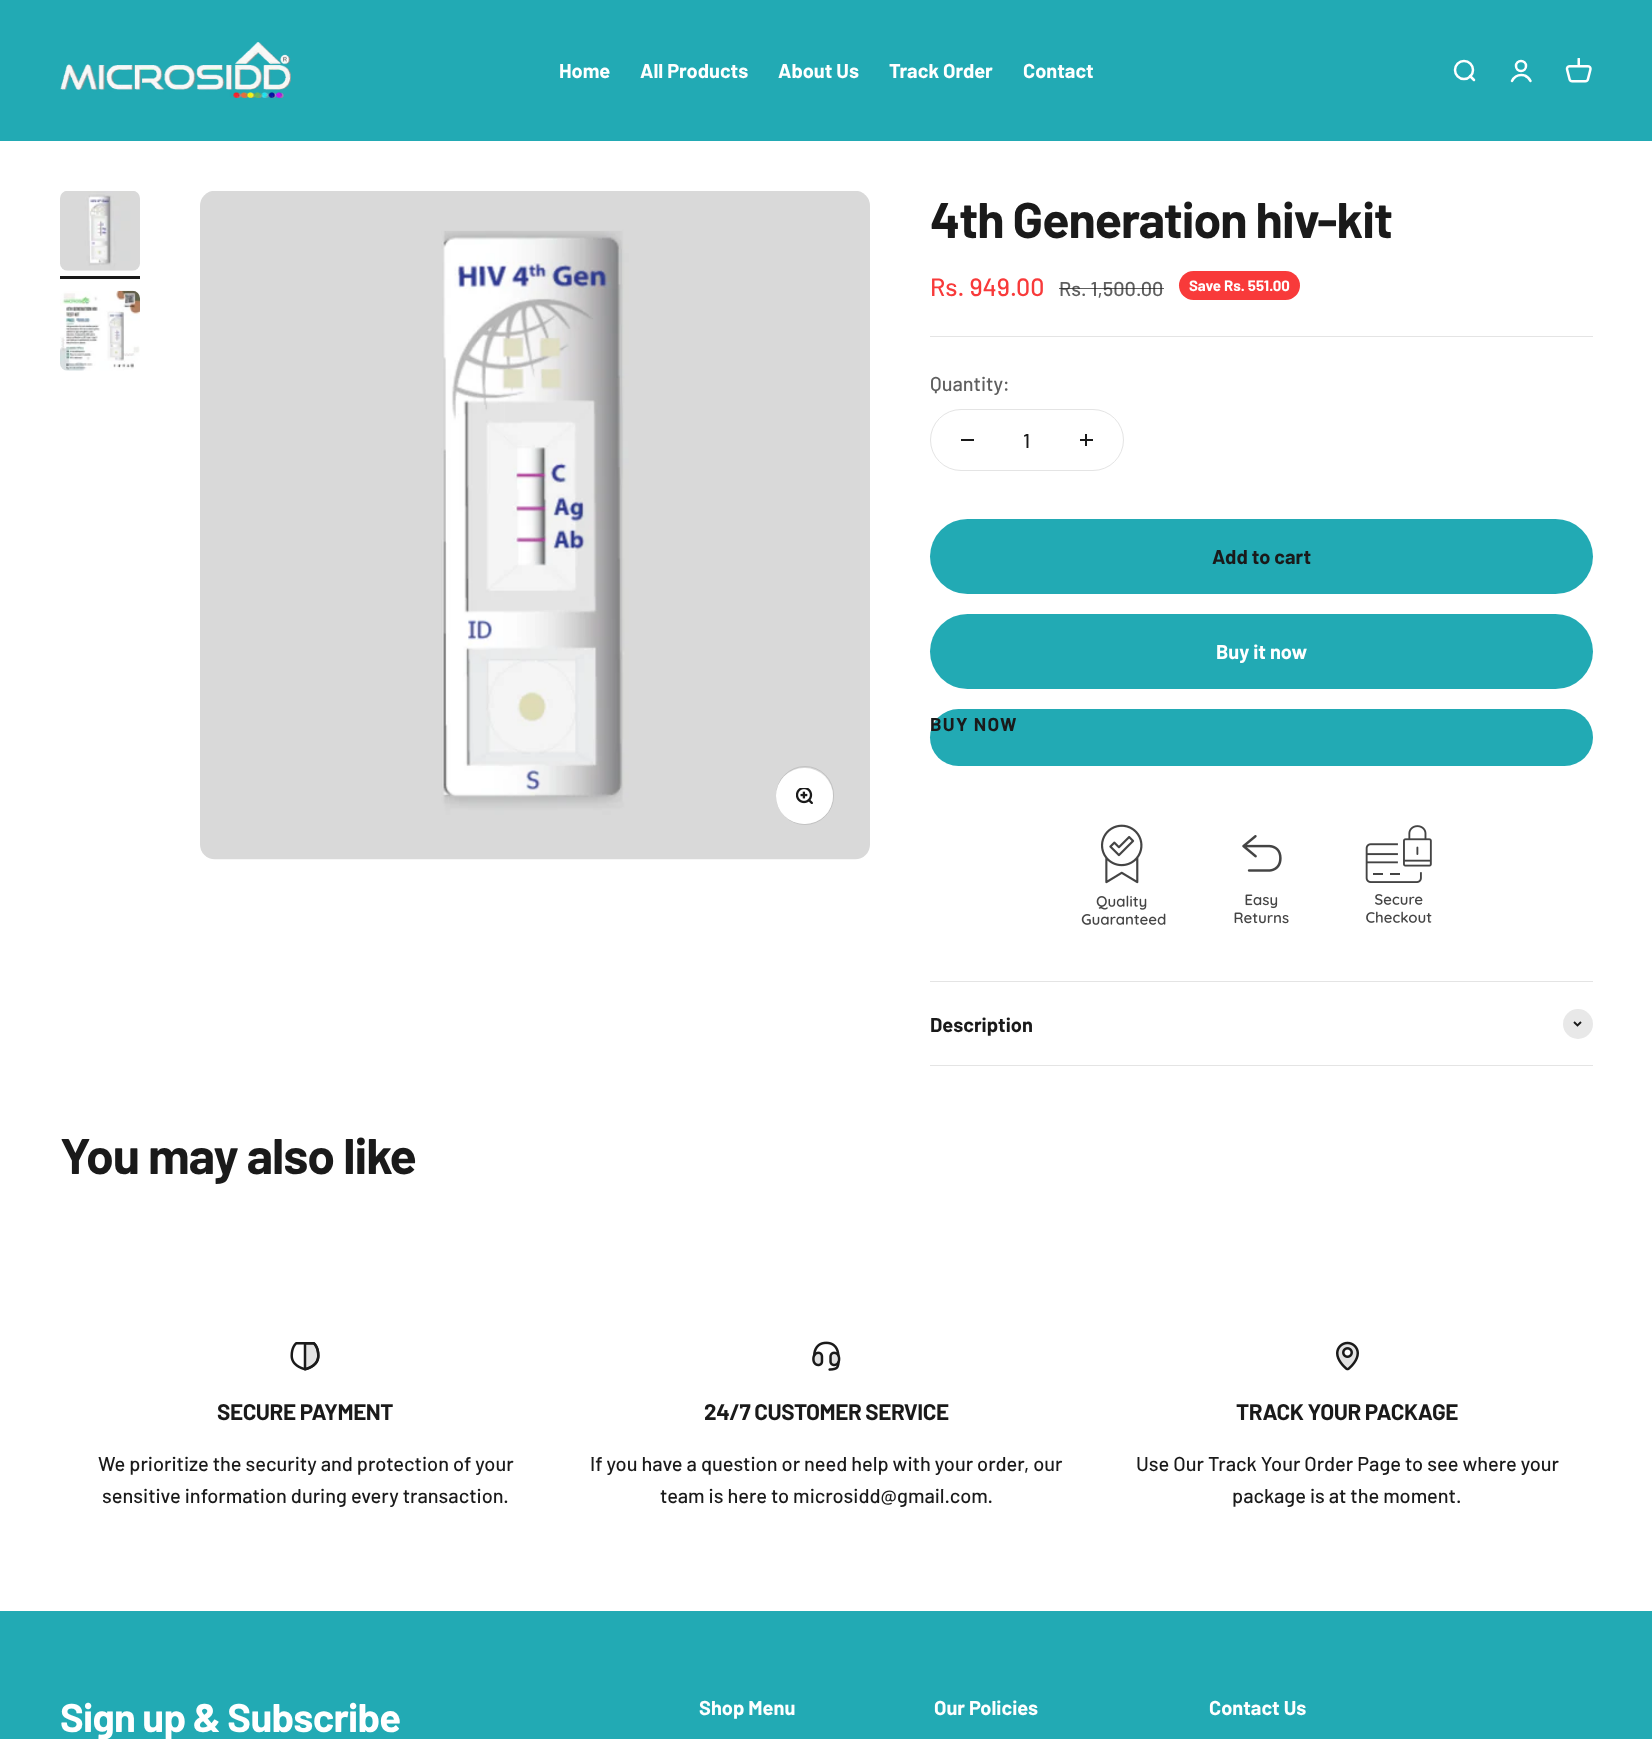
<svg xmlns="http://www.w3.org/2000/svg" width="1652" height="1739" viewBox="0 0 1652 1739">
  <rect width="100%" height="100%" fill="rgb(255,255,255)"/>
  <rect x="0" y="0" width="1652" height="141" fill="rgb(34,170,180)"/>
  <image x="60" y="42" width="231" height="56" href="pic1.png"/>
  <g font-family="Barlow" font-size="20" font-weight="bold" fill="rgb(255,255,255)">
    <text x="559" y="78">Home</text>
    <text x="640" y="78">All Products</text>
    <text x="778" y="78">About Us</text>
    <text x="889" y="78">Track Order</text>
    <text x="1023" y="78">Contact</text>
  </g>
  <circle cx="1464" cy="70" r="9" fill="none" stroke="rgb(255,255,255)" stroke-width="2.5"/>
  <path d="M1470 76L1474 80" fill="none" stroke="rgb(255,255,255)" stroke-width="2.5" stroke-linecap="round" stroke-linejoin="round"/>
  <circle cx="1521" cy="66" r="5" fill="none" stroke="rgb(255,255,255)" stroke-width="2.5"/>
  <path d="M1512 81C1516 73 1526.5 73 1530.5 81" fill="none" stroke="rgb(255,255,255)" stroke-width="2.5" stroke-linecap="round"/>
  <image x="1565" y="58" width="27" height="25" href="pic2.png"/>
  <image x="60" y="191" width="80" height="80" href="pic3.png"/>
  <rect x="60" y="276" width="80" height="3" fill="rgb(26,26,26)"/>
  <image x="60" y="290" width="80" height="81" href="pic4.png"/>
  <image x="200" y="191" width="670" height="669" href="pic5.png"/>
  <rect x="776.5" y="766.5" width="57" height="58" rx="28.5" fill="none" stroke="rgb(194,194,194)"/>
  <rect x="776" y="768" width="57" height="56" rx="28" fill="rgb(255,255,255)"/>
  <image x="796" y="788" width="17" height="16" href="pic6.png"/>
  <text x="930" y="238" font-family="Barlow" font-size="50" font-weight="bold" letter-spacing="-1" fill="rgb(26,26,26)">4th Generation hiv-kit</text>
  <text x="930" y="296" font-family="Barlow" font-size="25" font-weight="500" fill="rgb(248,58,58)">Rs. 949.00</text>
  <text x="1059" y="296" font-family="Barlow" font-size="20" font-weight="500" fill="rgb(95,95,95)">Rs. 1,500.00</text>
  <rect x="1059" y="288" width="105" height="1" fill="rgba(26,26,26,0.7)"/>
  <rect x="1179" y="271" width="121" height="29" rx="14.5" fill="rgb(248,58,58)"/>
  <text x="1189" y="291" font-family="Barlow" font-size="15" font-weight="bold" fill="rgb(255,255,255)">Save Rs. 551.00</text>
  <rect x="930" y="336" width="663" height="1" fill="rgb(228,228,228)"/>
  <text x="930" y="391" font-family="Barlow" font-size="20" font-weight="500" fill="rgb(95,95,95)">Quantity:</text>
  <rect x="930.5" y="409.5" width="193" height="61" rx="30.5" fill="none" stroke="rgb(228,228,228)"/>
  <rect x="961" y="439" width="13" height="2" fill="rgb(26,26,26)"/>
  <text x="1023" y="448" font-family="Barlow" font-size="20" font-weight="500" fill="rgb(26,26,26)">1</text>
  <rect x="1085" y="434" width="2" height="12" fill="rgb(26,26,26)"/>
  <rect x="1080" y="439" width="13" height="2" fill="rgb(26,26,26)"/>
  <rect x="930" y="519" width="663" height="75" rx="37.5" fill="rgb(34,170,180)"/>
  <text x="1212" y="564" font-family="Barlow" font-size="20" font-weight="bold" fill="rgb(26,26,26)">Add to cart</text>
  <rect x="930" y="614" width="663" height="75" rx="37.5" fill="rgb(34,170,180)"/>
  <text x="1216" y="659" font-family="Barlow" font-size="20" font-weight="bold" fill="rgb(255,255,255)">Buy it now</text>
  <rect x="930" y="709" width="663" height="57" rx="28.5" fill="rgb(34,170,180)"/>
  <text x="930" y="731" font-family="Barlow" font-size="18.75" font-weight="bold" letter-spacing="1.25" fill="rgb(26,26,26)">BUY NOW</text>
  <image x="1081" y="824" width="85" height="101" href="pic7.png"/>
  <image x="1234" y="835" width="55" height="89" href="pic8.png"/>
  <image x="1365" y="825" width="67" height="98" href="pic9.png"/>
  <rect x="930" y="981" width="663" height="1" fill="rgb(228,228,228)"/>
  <rect x="930" y="1065" width="663" height="1" fill="rgb(228,228,228)"/>
  <text x="930" y="1032" font-family="Barlow" font-size="20" font-weight="bold" fill="rgb(26,26,26)">Description</text>
  <circle cx="1578" cy="1024" r="15" fill="rgb(232,232,232)"/>
  <path d="M1574 1022L1577.5 1025.5L1581 1022" fill="none" stroke="rgb(26,26,26)" stroke-width="1.9"/>
  <text x="60" y="1174" font-family="Barlow" font-size="50" font-weight="bold" letter-spacing="-1" fill="rgb(26,26,26)">You may also like</text>
  <image x="290" y="1342" width="30" height="29" href="pic10.png"/>
  <text x="217" y="1420" font-family="Barlow" font-size="22.5" font-weight="bold" letter-spacing="-0.45" fill="rgb(26,26,26)">SECURE PAYMENT</text>
  <g font-family="Barlow" font-size="20" font-weight="500" fill="rgb(26,26,26)">
    <text x="98" y="1471">We prioritize the security and protection of your</text>
    <text x="102" y="1503">sensitive information during every transaction.</text>
  </g>
  <image x="812" y="1341" width="29" height="30" href="pic11.png"/>
  <text x="704" y="1420" font-family="Barlow" font-size="22.5" font-weight="bold" letter-spacing="-0.45" fill="rgb(26,26,26)">24/7 CUSTOMER SERVICE</text>
  <g font-family="Barlow" font-size="20" font-weight="500" fill="rgb(26,26,26)">
    <text x="590" y="1471">If you have a question or need help with your order, our</text>
    <text x="660" y="1503">team is here to microsidd@gmail.com.</text>
  </g>
  <image x="1336" y="1341" width="23" height="30" href="pic12.png"/>
  <text x="1236" y="1420" font-family="Barlow" font-size="22.5" font-weight="bold" letter-spacing="-0.45" fill="rgb(26,26,26)">TRACK YOUR PACKAGE</text>
  <g font-family="Barlow" font-size="20" font-weight="500" fill="rgb(26,26,26)">
    <text x="1136" y="1471">Use Our Track Your Order Page to see where your</text>
    <text x="1232" y="1503">package is at the moment.</text>
  </g>
  <rect x="0" y="1611" width="1652" height="128" fill="rgb(34,170,180)"/>
  <text x="60" y="1732" font-family="Barlow" font-size="40" font-weight="bold" letter-spacing="-0.75" fill="rgb(255,255,255)">Sign up &amp; Subscribe</text>
  <g font-family="Barlow" font-size="20" font-weight="bold" fill="rgb(255,255,255)">
    <text x="699" y="1715">Shop Menu</text>
    <text x="934" y="1715">Our Policies</text>
    <text x="1209" y="1715">Contact Us</text>
  </g>
</svg>
